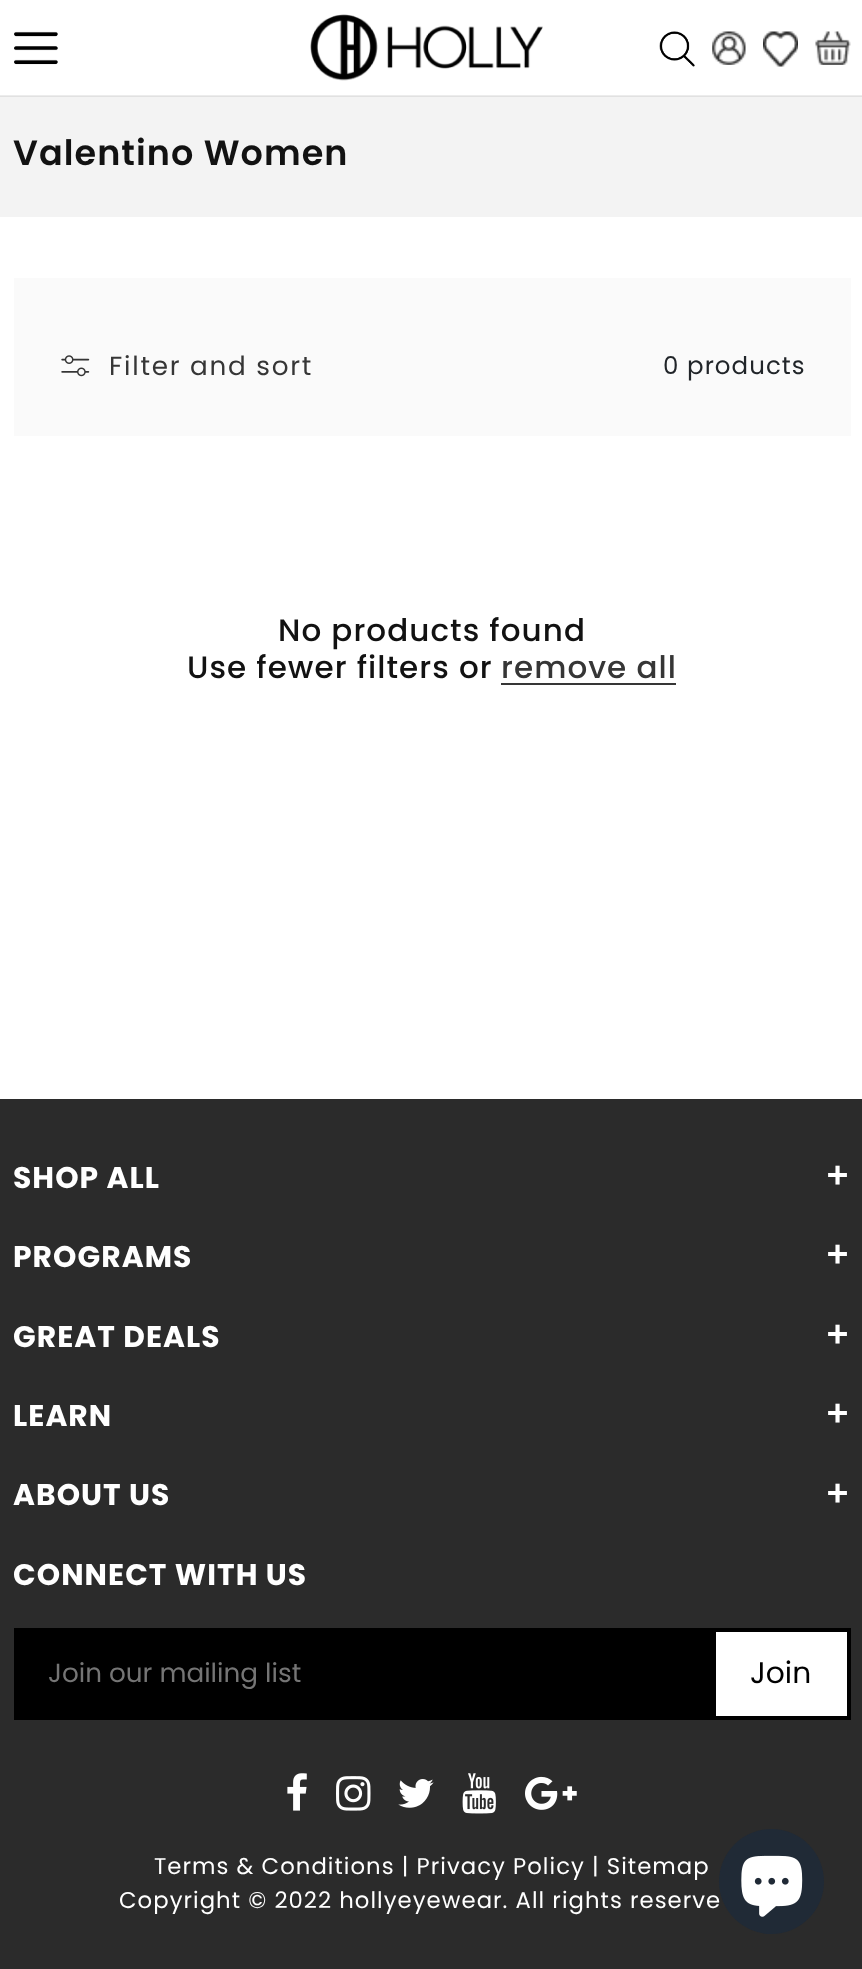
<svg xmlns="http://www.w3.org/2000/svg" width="862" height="1969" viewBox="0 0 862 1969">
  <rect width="100%" height="100%" fill="rgb(255,255,255)"/>
  <rect x="0" y="95" width="862" height="1" fill="rgb(236,236,236)"/>
  <image x="14" y="31" width="44" height="34" href="pic1.png"/>
  <image x="310" y="14" width="233" height="67" href="pic2.png"/>
  <image x="659" y="31" width="36" height="36" href="pic3.png"/>
  <image x="712" y="31" width="34" height="34" href="pic4.png"/>
  <image x="763" y="31" width="35" height="36" href="pic5.png"/>
  <image x="815" y="31" width="36" height="34" href="pic6.png"/>
  <rect x="0" y="97" width="862" height="120" fill="rgb(243,243,243)"/>
  <rect x="0" y="96" width="862" height="1" fill="rgb(225,225,225)"/>
  <text x="13" y="165" font-family="Poppins" font-size="35" font-weight="600" letter-spacing="1.05" fill="rgb(18,18,18)">Valentino Women</text>
  <rect x="14" y="278" width="837" height="158" fill="rgb(250,250,250)"/>
  <image x="61" y="355" width="29" height="22" href="pic7.png"/>
  <text x="109" y="375" font-family="Poppins" font-size="26.25" letter-spacing="1.75" fill="rgb(54,54,54)">Filter and sort</text>
  <text x="663" y="374" font-family="Poppins" font-size="24.5" letter-spacing="1.05" fill="rgb(33,37,41)">0 products</text>
  <g font-family="Poppins" font-size="31" font-weight="500" letter-spacing="1.05" fill="rgb(18,18,18)">
    <text x="278" y="641">No products found</text>
    <text x="187" y="678">Use fewer filters or</text>
  </g>
  <text x="501" y="678" font-family="Poppins" font-size="31" font-weight="500" letter-spacing="1.05" fill="rgb(54,54,54)">remove all</text>
  <rect x="501" y="683" width="175" height="2" fill="rgb(54,54,54)"/>
  <rect x="0" y="1099" width="862" height="870" fill="rgb(43,43,43)"/>
  <text x="13" y="1188" font-family="Poppins" font-size="29.75" font-weight="bold" letter-spacing="1.05" fill="rgb(255,255,255)">SHOP ALL</text>
  <text x="827" y="1186" font-family="DejaVu Sans Mono" font-size="35" font-weight="bold" letter-spacing="1.05" fill="rgb(255,255,255)">+</text>
  <text x="13" y="1267" font-family="Poppins" font-size="29.75" font-weight="bold" letter-spacing="1.05" fill="rgb(255,255,255)">PROGRAMS</text>
  <text x="827" y="1265" font-family="DejaVu Sans Mono" font-size="35" font-weight="bold" letter-spacing="1.05" fill="rgb(255,255,255)">+</text>
  <text x="13" y="1347" font-family="Poppins" font-size="29.75" font-weight="bold" letter-spacing="1.05" fill="rgb(255,255,255)">GREAT DEALS</text>
  <text x="827" y="1345" font-family="DejaVu Sans Mono" font-size="35" font-weight="bold" letter-spacing="1.05" fill="rgb(255,255,255)">+</text>
  <text x="13" y="1426" font-family="Poppins" font-size="29.75" font-weight="bold" letter-spacing="1.05" fill="rgb(255,255,255)">LEARN</text>
  <text x="827" y="1424" font-family="DejaVu Sans Mono" font-size="35" font-weight="bold" letter-spacing="1.05" fill="rgb(255,255,255)">+</text>
  <text x="13" y="1505" font-family="Poppins" font-size="29.75" font-weight="bold" letter-spacing="1.05" fill="rgb(255,255,255)">ABOUT US</text>
  <text x="827" y="1504" font-family="DejaVu Sans Mono" font-size="35" font-weight="bold" letter-spacing="1.05" fill="rgb(255,255,255)">+</text>
  <text x="13" y="1585" font-family="Poppins" font-size="29.75" font-weight="bold" letter-spacing="1.05" fill="rgb(255,255,255)">CONNECT WITH US</text>
  <rect x="14" y="1628" width="698" height="92" fill="rgb(0,0,0)"/>
  <text x="48" y="1682" font-family="Poppins" font-size="26.25" fill="rgb(117,117,117)">Join our mailing list</text>
  <rect x="714" y="1630" width="135" height="88" fill="rgb(255,255,255)" stroke="rgb(0,0,0)" stroke-width="4"/>
  <text x="750" y="1683" font-family="Poppins" font-size="29.75" fill="rgb(0,0,0)">Join</text>
  <image x="287" y="1773" width="20" height="38" href="pic8.png"/>
  <image x="336" y="1776" width="35" height="35" href="pic9.png"/>
  <image x="398" y="1779" width="36" height="29" href="pic10.png"/>
  <image x="462" y="1773" width="34" height="41" href="pic11.png"/>
  <image x="525" y="1776" width="52" height="34" href="pic12.png"/>
  <g font-family="Poppins" font-size="22.75" letter-spacing="1.05" fill="rgb(255,255,255)">
    <text x="154" y="1874">Terms &amp; Conditions | Privacy Policy | Sitemap</text>
    <text x="119" y="1908">Copyright © 2022 hollyeyewear. All rights reserve</text>
  </g>
  <circle cx="771.5" cy="1881.5" r="52.5" fill="rgb(32,42,54)"/>
  <image x="741" y="1855" width="62" height="62" href="pic13.png"/>
</svg>
